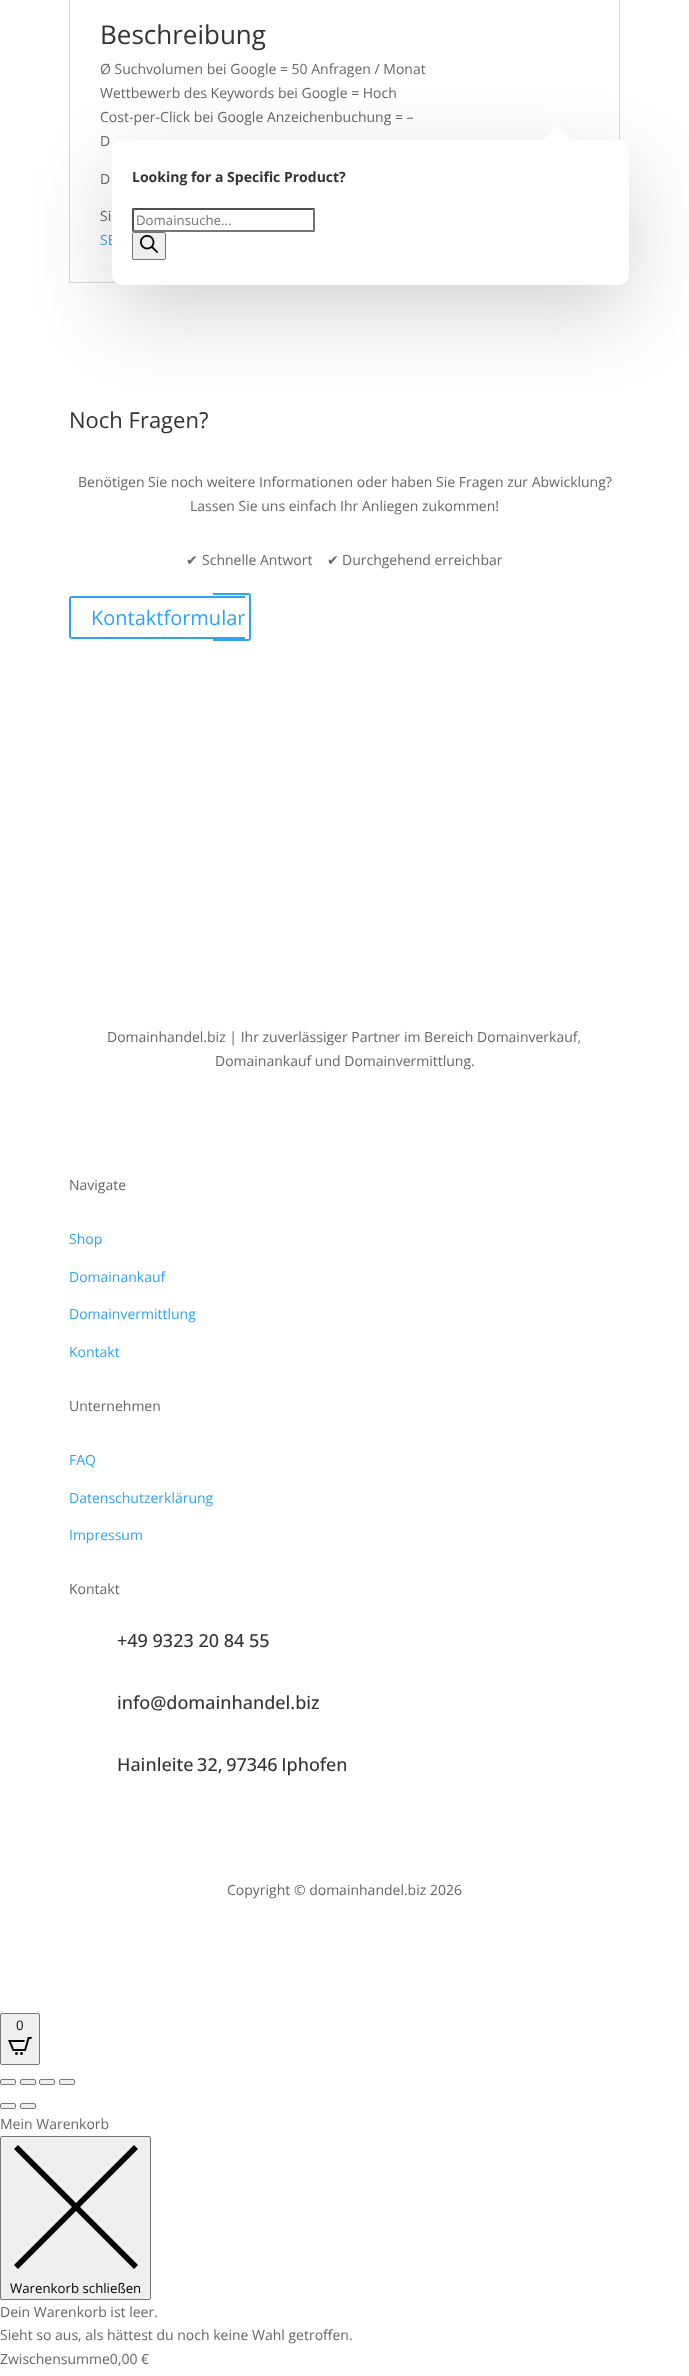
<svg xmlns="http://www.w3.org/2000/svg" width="689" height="2376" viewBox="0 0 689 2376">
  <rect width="100%" height="100%" fill="rgb(255,255,255)"/>
  <rect x="69.5" y="-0.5" width="550" height="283" fill="none" stroke="rgb(217,217,217)"/>
  <text x="100" y="44" font-family="Open Sans" font-size="26" fill="rgb(51,51,51)">Beschreibung</text>
  <g font-family="Open Sans" font-size="14" fill="rgb(102,102,102)">
    <text>
      <tspan x="100" y="74">Ø Suchvolumen bei Google = 50 Anfragen / Monat</tspan>
      <tspan x="100" y="98">Wettbewerb des Keywords bei Google = Hoch</tspan>
      <tspan x="100" y="122">Cost-per-Click bei Google Anzeichenbuchung = –</tspan>
      <tspan x="100" y="146">D</tspan>
    </text>
    <text x="100" y="184">D</text>
    <text x="100" y="221">Si</text>
  </g>
  <text x="100" y="245" font-family="Open Sans" font-size="14" fill="rgb(46,163,242)">SE</text>
  <text x="69" y="428" font-family="Open Sans" font-size="22" fill="rgb(51,51,51)">Noch Fragen?</text>
  <g font-family="Open Sans" font-size="14" fill="rgb(102,102,102)">
    <text x="78" y="487">Benötigen Sie noch weitere Informationen oder haben Sie Fragen zur Abwicklung?</text>
    <text x="190" y="511">Lassen Sie uns einfach Ihr Anliegen zukommen!</text>
  </g>
  <text x="186" y="565" font-family="DejaVu Sans" font-size="14" fill="rgb(102,102,102)">✔</text>
  <text x="202" y="565" font-family="Open Sans" font-size="14" fill="rgb(102,102,102)">Schnelle Antwort</text>
  <text x="327" y="565" font-family="DejaVu Sans" font-size="14" fill="rgb(102,102,102)">✔</text>
  <text x="342" y="565" font-family="Open Sans" font-size="14" fill="rgb(102,102,102)">Durchgehend erreichbar</text>
  <path d="M72 596H245V639H72C70 639 69 638 69 636V599C69 597 70 596 72 596ZM72 598H245V637H72C71 637 71 637 71 636V599C71 598 71 598 72 598Z" fill="rgb(46,163,242)" fill-rule="evenodd"/>
  <path d="M213 593H248C250 593 251 594 251 596V638C251 640 250 641 248 641H213ZM213 595H248C249 595 249 595 249 596V638C249 639 249 639 248 639H213Z" fill="rgb(46,163,242)" fill-rule="evenodd"/>
  <text x="91" y="625" font-family="Open Sans" font-size="20" fill="rgb(46,163,242)">Kontaktformular</text>
  <g font-family="Open Sans" font-size="14" fill="rgb(102,102,102)">
    <text x="107" y="1042">Domainhandel.biz | Ihr zuverlässiger Partner im Bereich Domainverkauf,</text>
    <text x="215" y="1066">Domainankauf und Domainvermittlung.</text>
    <text x="69" y="1190">Navigate</text>
  </g>
  <g font-family="Open Sans" font-size="14" fill="rgb(46,163,242)">
    <text x="69" y="1244">Shop</text>
    <text x="69" y="1282">Domainankauf</text>
    <text x="69" y="1319">Domainvermittlung</text>
    <text x="69" y="1357">Kontakt</text>
  </g>
  <text x="69" y="1411" font-family="Open Sans" font-size="14" fill="rgb(102,102,102)">Unternehmen</text>
  <g font-family="Open Sans" font-size="14" fill="rgb(46,163,242)">
    <text x="69" y="1465">FAQ</text>
    <text x="69" y="1503">Datenschutzerklärung</text>
    <text x="69" y="1540">Impressum</text>
  </g>
  <text x="69" y="1594" font-family="Open Sans" font-size="14" fill="rgb(102,102,102)">Kontakt</text>
  <g font-family="Open Sans" font-size="18" font-weight="500" fill="rgb(51,51,51)">
    <text x="117" y="1647">+49 9323 20 84 55</text>
    <text x="117" y="1709">info@domainhandel.biz</text>
    <text x="117" y="1771" word-spacing="-1">Hainleite 32, 97346 Iphofen</text>
  </g>
  <text x="227" y="1895" font-family="Open Sans" font-size="14" fill="rgb(102,102,102)">Copyright © domainhandel.biz 2026</text>
  <rect x="112" y="169" width="517" height="145" rx="10" fill="rgba(0,0,0,0.17)" filter="blur(40px)"/>
  <rect x="112" y="140" width="517" height="145" rx="10" fill="rgb(255,255,255)"/>
  <path d="M572 141H542L557 126Z" fill="rgb(255,255,255)"/>
  <text x="132" y="182" font-family="Open Sans" font-size="14" font-weight="bold" fill="rgb(51,51,51)">Looking for a Specific Product?</text>
  <path d="M132 208H315L313 210H134Z" fill="rgb(79,79,79)"/>
  <path d="M315 208V232L313 230V210Z" fill="rgb(118,118,118)"/>
  <path d="M315 232H132L134 230H313Z" fill="rgb(118,118,118)"/>
  <path d="M132 232V208L134 210V230Z" fill="rgb(79,79,79)"/>
  <text x="136" y="225" font-family="Open Sans" font-size="13.25" fill="rgb(117,117,117)">Domainsuche...</text>
  <rect x="132.5" y="232.5" width="33" height="27" rx="1.5" fill="rgb(239,239,239)" stroke="rgb(118,118,118)"/>
  <image x="140" y="235" width="18" height="18" href="pic1.png"/>
  <rect x="0.5" y="2013.5" width="39" height="51" rx="1.5" fill="rgb(239,239,239)" stroke="rgb(118,118,118)"/>
  <text x="16" y="2030" font-family="Open Sans" font-size="13.25" fill="rgb(0,0,0)">0</text>
  <image x="8" y="2037" width="24" height="18" href="pic2.png"/>
  <rect x="0.5" y="2079.5" width="15" height="5" rx="1.5" fill="rgb(239,239,239)" stroke="rgb(118,118,118)"/>
  <rect x="20.5" y="2079.5" width="15" height="5" rx="1.5" fill="rgb(239,239,239)" stroke="rgb(118,118,118)"/>
  <rect x="39.5" y="2079.5" width="15" height="5" rx="1.5" fill="rgb(239,239,239)" stroke="rgb(118,118,118)"/>
  <rect x="59.5" y="2079.5" width="15" height="5" rx="1.5" fill="rgb(239,239,239)" stroke="rgb(118,118,118)"/>
  <rect x="0.5" y="2103.5" width="15" height="5" rx="1.5" fill="rgb(239,239,239)" stroke="rgb(118,118,118)"/>
  <rect x="20.5" y="2103.5" width="15" height="5" rx="1.5" fill="rgb(239,239,239)" stroke="rgb(118,118,118)"/>
  <text x="0" y="2129" font-family="Open Sans" font-size="14" fill="rgb(102,102,102)">Mein Warenkorb</text>
  <rect x="0.5" y="2136.5" width="150" height="163" rx="1.5" fill="rgb(239,239,239)" stroke="rgb(118,118,118)"/>
  <path d="M76 2203L134 2145L138 2149L80 2207L138 2265L134 2269L76 2211L18 2269L14 2265L72 2207L14 2149L18 2145Z" fill="rgb(0,0,0)" fill-rule="evenodd"/>
  <text x="10" y="2293" font-family="Open Sans" font-size="13.25" fill="rgb(0,0,0)">Warenkorb schließen</text>
  <g font-family="Open Sans" font-size="14" fill="rgb(102,102,102)">
    <text>
      <tspan x="0" y="2317">Dein Warenkorb ist leer.</tspan>
      <tspan x="0" y="2340">Sieht so aus, als hättest du noch keine Wahl getroffen.</tspan>
      <tspan x="0" y="2364">Zwischensumme0,00 €</tspan>
    </text>
  </g>
</svg>
